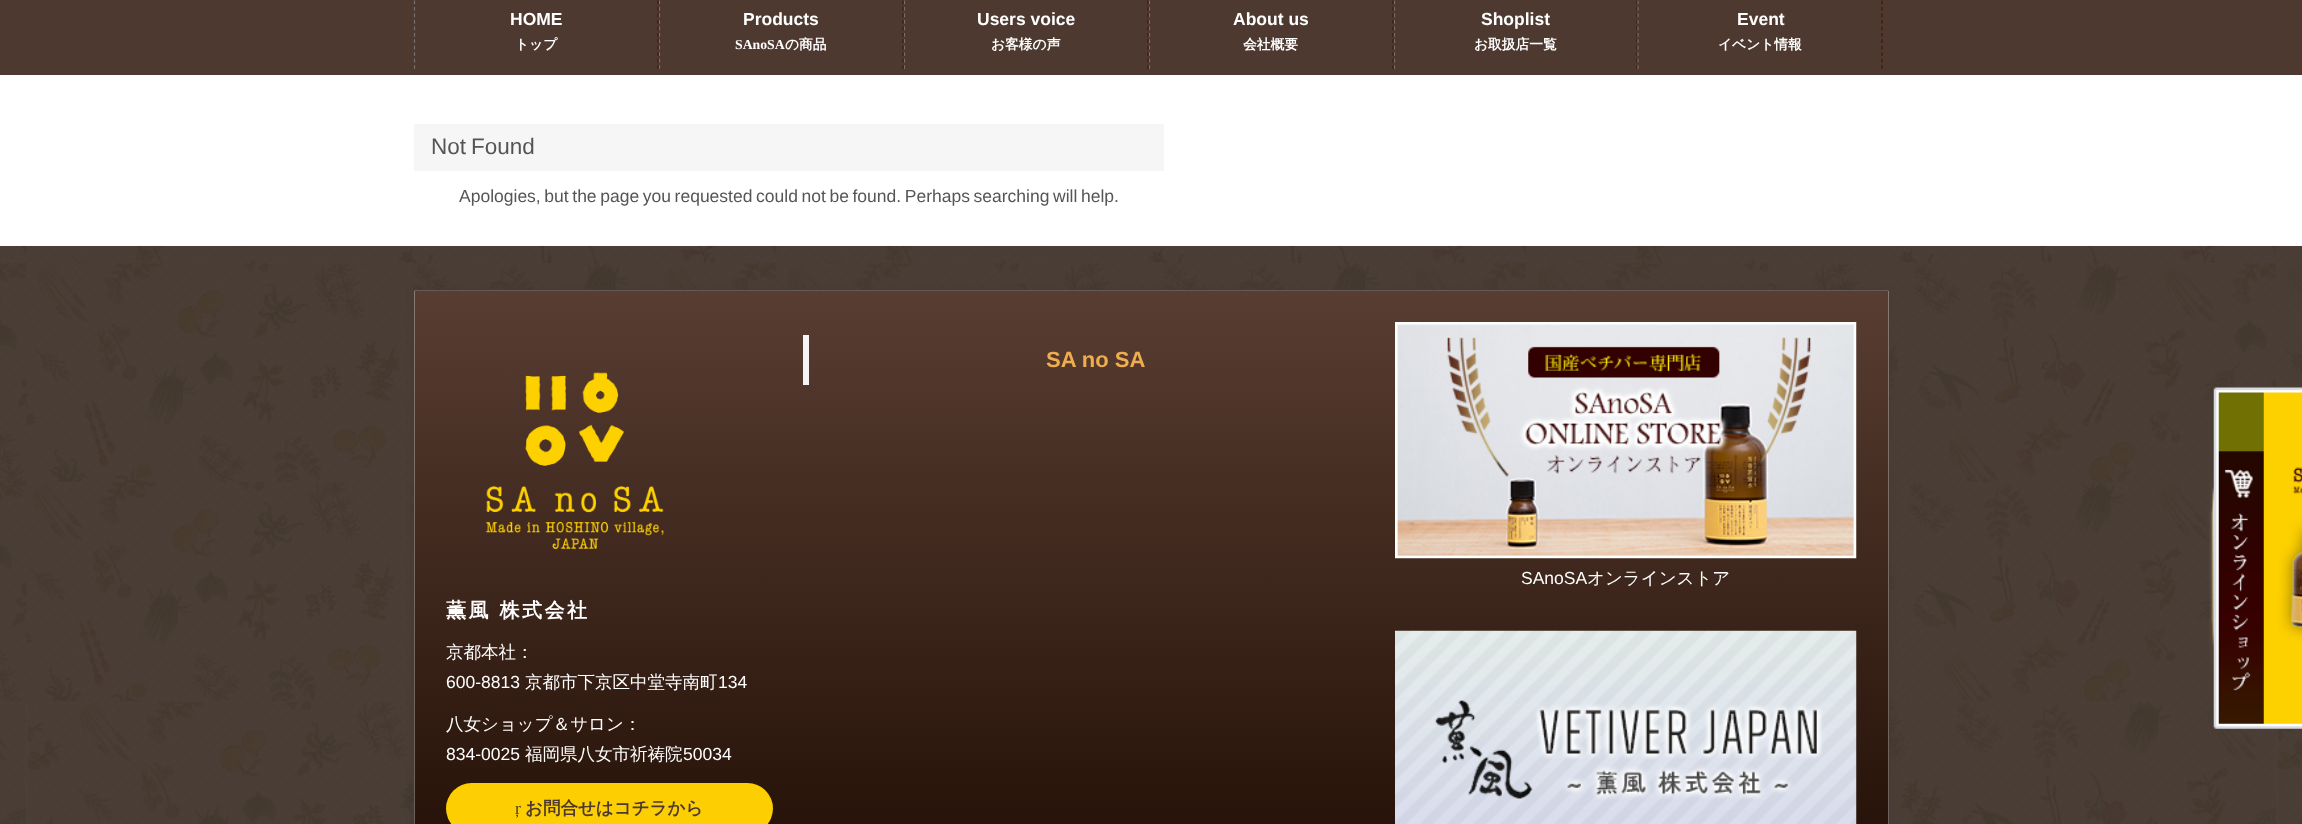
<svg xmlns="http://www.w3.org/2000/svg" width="2302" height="824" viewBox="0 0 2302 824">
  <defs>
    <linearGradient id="g1" gradientUnits="userSpaceOnUse" x1="1151" y1="-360" x2="1151" y2="291"><stop offset="0" stop-color="rgb(88,61,50)"/><stop offset="1" stop-color="rgb(29,10,1)"/></linearGradient>
    <linearGradient id="g2" gradientUnits="userSpaceOnUse" x1="1151" y1="291" x2="1151" y2="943"><stop offset="0" stop-color="rgb(88,61,50)"/><stop offset="1" stop-color="rgb(29,10,1)"/></linearGradient>
    <clipPath id="clip1"><path d="M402 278H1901V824H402ZM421 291H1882C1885.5 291 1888 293.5 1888 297V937C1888 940.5 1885.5 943 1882 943H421C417.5 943 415 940.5 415 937V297C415 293.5 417.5 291 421 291Z" clip-rule="evenodd"/></clipPath>
  </defs>
  <rect width="100%" height="100%" fill="rgb(255,255,255)"/>
  <rect x="0" y="0" width="2302" height="75" fill="rgb(77,57,48)"/>
  <path d="M658-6V69" fill="none" stroke="rgb(70,20,6)" stroke-width="1.2" stroke-dasharray="3.75 2.73"/>
  <path d="M414.5-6V69" fill="none" stroke="rgb(115,113,112)" stroke-width="1.2" stroke-dasharray="3.75 2.73"/>
  <text x="510" y="25" font-family="Liberation Sans" font-size="17.5" font-weight="bold" fill="rgb(255,255,255)">HOME</text>
  <text x="515" y="49" font-family="WenQuanYi Zen Hei" font-size="13.75" font-weight="bold" fill="rgb(255,255,255)">トップ</text>
  <path d="M903-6V69" fill="none" stroke="rgb(70,20,6)" stroke-width="1.2" stroke-dasharray="3.75 2.73"/>
  <path d="M659.5-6V69" fill="none" stroke="rgb(115,113,112)" stroke-width="1.2" stroke-dasharray="3.75 2.73"/>
  <text x="743" y="25" font-family="Liberation Sans" font-size="17.5" font-weight="bold" fill="rgb(255,255,255)">Products</text>
  <text x="735" y="49" font-family="Liberation Serif" font-size="13.75" font-weight="bold" fill="rgb(255,255,255)">SAnoSA</text>
  <text x="785" y="49" font-family="WenQuanYi Zen Hei" font-size="13.75" font-weight="bold" fill="rgb(255,255,255)">の商品</text>
  <path d="M1148-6V69" fill="none" stroke="rgb(70,20,6)" stroke-width="1.2" stroke-dasharray="3.75 2.73"/>
  <path d="M904.5-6V69" fill="none" stroke="rgb(115,113,112)" stroke-width="1.2" stroke-dasharray="3.75 2.73"/>
  <text x="977" y="25" font-family="Liberation Sans" font-size="17.5" font-weight="bold" fill="rgb(255,255,255)">Users voice</text>
  <text x="991" y="49" font-family="WenQuanYi Zen Hei" font-size="13.75" font-weight="bold" fill="rgb(255,255,255)">お客様の声</text>
  <path d="M1393-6V69" fill="none" stroke="rgb(70,20,6)" stroke-width="1.2" stroke-dasharray="3.75 2.73"/>
  <path d="M1149.5-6V69" fill="none" stroke="rgb(115,113,112)" stroke-width="1.2" stroke-dasharray="3.75 2.73"/>
  <text x="1233" y="25" font-family="Liberation Sans" font-size="17.5" font-weight="bold" fill="rgb(255,255,255)">About us</text>
  <text x="1243" y="49" font-family="WenQuanYi Zen Hei" font-size="13.75" font-weight="bold" fill="rgb(255,255,255)">会社概要</text>
  <path d="M1637-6V69" fill="none" stroke="rgb(70,20,6)" stroke-width="1.2" stroke-dasharray="3.75 2.73"/>
  <path d="M1394.5-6V69" fill="none" stroke="rgb(115,113,112)" stroke-width="1.2" stroke-dasharray="3.75 2.73"/>
  <text x="1481" y="25" font-family="Liberation Sans" font-size="17.5" font-weight="bold" fill="rgb(255,255,255)">Shoplist</text>
  <text x="1474" y="49" font-family="WenQuanYi Zen Hei" font-size="13.75" font-weight="bold" fill="rgb(255,255,255)">お取扱店一覧</text>
  <path d="M1882-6V69" fill="none" stroke="rgb(70,20,6)" stroke-width="1.2" stroke-dasharray="3.75 2.73"/>
  <path d="M1638-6V69" fill="none" stroke="rgba(119,119,119,0.9)" stroke-width="1.2" stroke-dasharray="3.75 2.73"/>
  <text x="1737" y="25" font-family="Liberation Sans" font-size="17.5" font-weight="bold" fill="rgb(255,255,255)">Event</text>
  <text x="1718" y="49" font-family="WenQuanYi Zen Hei" font-size="13.75" font-weight="bold" fill="rgb(255,255,255)">イベント情報</text>
  <image x="0" y="245" width="2302" height="579" href="pic2.png"/>
  <image x="2209" y="387" width="93" height="342" href="pic1.png"/>
  <rect x="414" y="124" width="750" height="47" fill="rgb(246,246,246)"/>
  <text x="431" y="154" word-spacing="-1.25" font-family="Liberation Sans" font-size="22.5" fill="rgb(85,85,85)">Not Found</text>
  <text x="459" y="202" word-spacing="-1.25" font-family="Liberation Sans" font-size="17.5" fill="rgb(85,85,85)">Apologies, but the page you requested could not be found. Perhaps searching will help.</text>
  <path d="M415 290H1888C1888.5 290 1889 290.5 1889 291H414C414 290.5 414.5 290 415 290Z" fill="url(#g1)"/>
  <rect x="414" y="291" width="1475" height="533" fill="url(#g2)"/>
  <rect x="414.5" y="290.5" width="1474" height="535" rx="0.5" fill="none" stroke="rgba(255,255,255,0.35)"/>
  <g clip-path="url(#clip1)">
    <rect x="415" y="291" width="1473" height="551" rx="6" fill="rgba(51,51,51,0.25)" filter="blur(4px)"/>
  </g>
  <rect x="803" y="335" width="6" height="50" fill="rgb(245,245,245)"/>
  <text x="1046" y="367" font-family="Liberation Sans" font-size="22" font-weight="bold" fill="rgb(240,173,78)">SA no SA</text>
  <image x="1395" y="322" width="462" height="237" href="pic3.png"/>
  <text x="1521" y="584" font-family="Liberation Sans" font-size="17.5" fill="rgb(255,255,255)">SAnoSA</text>
  <text x="1587" y="584" font-family="WenQuanYi Zen Hei" font-size="17.5" font-weight="500" fill="rgb(255,255,255)">オンラインストア</text>
  <image x="1395" y="630" width="462" height="194" href="pic4.png"/>
  <image x="485" y="372" width="179" height="177" href="pic5.png"/>
  <text x="446" y="617" font-family="WenQuanYi Zen Hei" font-size="20" font-weight="bold" letter-spacing="2.5" fill="rgb(255,255,255)">薫風 株式会社</text>
  <text x="446" y="658" font-family="WenQuanYi Zen Hei" font-size="17.5" font-weight="500" fill="rgb(255,255,255)">京都本社：</text>
  <text x="446" y="688" font-family="Liberation Sans" font-size="17.5" fill="rgb(255,255,255)">600-8813</text>
  <text x="525" y="688" font-family="WenQuanYi Zen Hei" font-size="17.5" font-weight="500" fill="rgb(255,255,255)">京都市下京区中堂寺南町</text>
  <text x="718" y="688" font-family="Liberation Sans" font-size="17.5" fill="rgb(255,255,255)">134</text>
  <text x="446" y="730" font-family="WenQuanYi Zen Hei" font-size="17.5" font-weight="500" fill="rgb(255,255,255)">八女ショップ＆サロン：</text>
  <text x="446" y="760" font-family="Liberation Sans" font-size="17.5" fill="rgb(255,255,255)">834-0025</text>
  <text x="525" y="760" font-family="WenQuanYi Zen Hei" font-size="17.5" font-weight="500" fill="rgb(255,255,255)">福岡県八女市祈祷院</text>
  <text x="683" y="760" font-family="Liberation Sans" font-size="17.5" fill="rgb(255,255,255)">50034</text>
  <rect x="446" y="783" width="327" height="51" rx="25.5" fill="rgb(253,206,2)"/>
  <text x="515" y="814" font-family="Liberation Serif" font-size="17.5" fill="rgb(77,57,48)">ŗ</text>
  <text x="525" y="814" font-family="WenQuanYi Zen Hei" font-size="17.5" font-weight="bold" fill="rgb(77,57,48)">お問合せはコチラから</text>
</svg>
